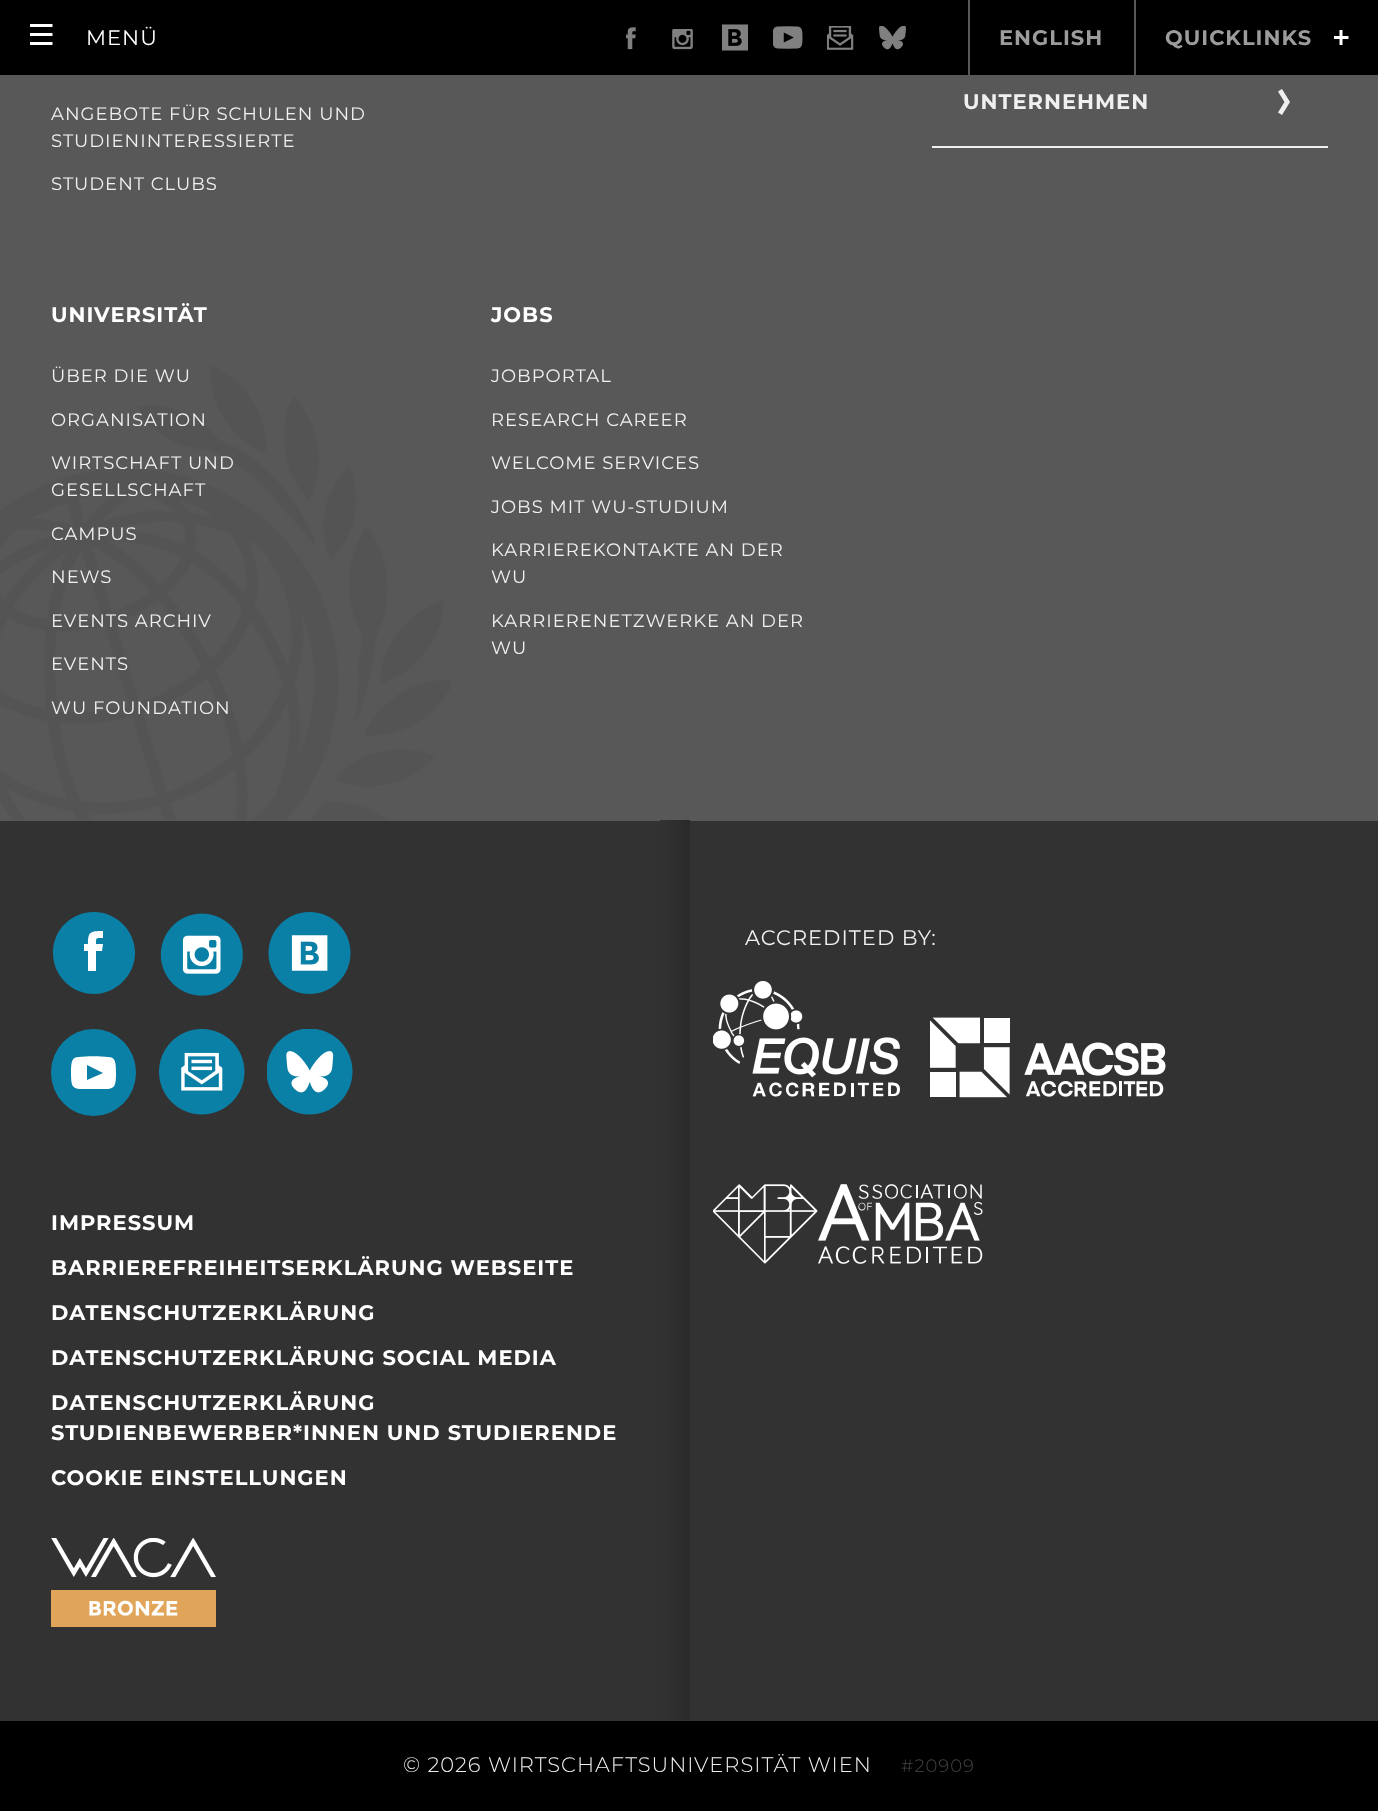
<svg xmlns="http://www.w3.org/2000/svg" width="1378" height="1811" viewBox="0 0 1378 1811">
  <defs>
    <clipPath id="clip1"><rect x="1334" y="30" width="15" height="15"/></clipPath>
  </defs>
  <rect width="100%" height="100%" fill="rgb(88,88,88)"/>
  <rect x="0" y="0" width="1378" height="75" fill="rgb(0,0,0)"/>
  <path d="M30 25.5H52.5M52.5 43.5H30M30 34.5H52.5" fill="none" stroke="rgb(255,255,255)" stroke-width="3"/>
  <text x="86" y="45" font-family="Montserrat" font-size="21" letter-spacing="1" fill="rgb(255,255,255)">MENÜ</text>
  <image x="626" y="27" width="10" height="23" href="pic1.png"/>
  <image x="672" y="29" width="21" height="21" href="pic2.png"/>
  <image x="722" y="24" width="26" height="27" href="pic3.png"/>
  <image x="773" y="26" width="30" height="23" href="pic4.png"/>
  <image x="827" y="26" width="27" height="24" href="pic5.png"/>
  <image x="879" y="26" width="27" height="24" href="pic6.png"/>
  <rect x="968" y="0" width="2" height="75" fill="rgb(88,88,88)"/>
  <text x="999" y="45" font-family="Montserrat" font-size="21" font-weight="bold" letter-spacing="1" fill="rgb(156,156,156)">ENGLISH</text>
  <rect x="1134" y="0" width="2" height="75" fill="rgb(88,88,88)"/>
  <text x="1165" y="45" font-family="Montserrat" font-size="21" font-weight="bold" letter-spacing="1" fill="rgb(156,156,156)">QUICKLINKS</text>
  <g clip-path="url(#clip1)">
    <path d="M1341 30V37.5M1348.5 37.5H1341M1341 45V37.5M1333.5 37.5H1341" fill="none" stroke="rgb(255,255,255)" stroke-width="3"/>
  </g>
  <image x="0" y="367" width="451" height="453" href="pic7.png"/>
  <rect x="932" y="146" width="396" height="2" fill="rgb(240,240,240)"/>
  <path d="M1282 115L1278 112.5L1284.5 102L1278 91.5L1282 89L1290 102Z" fill="rgb(240,240,240)"/>
  <text x="963" y="109" font-family="Montserrat" font-size="21" font-weight="bold" letter-spacing="1" fill="rgb(240,240,240)">UNTERNEHMEN</text>
  <g font-family="Montserrat" font-size="18" letter-spacing="1" fill="rgb(240,240,240)">
    <text>
      <tspan x="51" y="120">ANGEBOTE FÜR SCHULEN UND</tspan>
      <tspan x="51" y="147">STUDIENINTERESSIERTE</tspan>
    </text>
    <text x="51" y="190">STUDENT CLUBS</text>
  </g>
  <text x="51" y="322" font-family="Montserrat" font-size="21" font-weight="bold" letter-spacing="1" fill="rgb(255,255,255)">UNIVERSITÄT</text>
  <g font-family="Montserrat" font-size="18" letter-spacing="1" fill="rgb(240,240,240)">
    <text x="51" y="382">ÜBER DIE WU</text>
    <text x="51" y="426">ORGANISATION</text>
    <text>
      <tspan x="51" y="469">WIRTSCHAFT UND</tspan>
      <tspan x="51" y="496">GESELLSCHAFT</tspan>
    </text>
    <text x="51" y="540">CAMPUS</text>
    <text x="51" y="583">NEWS</text>
    <text x="51" y="627">EVENTS ARCHIV</text>
    <text x="51" y="670">EVENTS</text>
    <text x="51" y="714">WU FOUNDATION</text>
  </g>
  <text x="491" y="322" font-family="Montserrat" font-size="21" font-weight="bold" letter-spacing="1" fill="rgb(255,255,255)">JOBS</text>
  <g font-family="Montserrat" font-size="18" letter-spacing="1" fill="rgb(240,240,240)">
    <text x="491" y="382">JOBPORTAL</text>
    <text x="491" y="426">RESEARCH CAREER</text>
    <text x="491" y="469">WELCOME SERVICES</text>
    <text x="491" y="513">JOBS MIT WU-STUDIUM</text>
    <text>
      <tspan x="491" y="556">KARRIEREKONTAKTE AN DER</tspan>
      <tspan x="491" y="583">WU</tspan>
    </text>
    <text>
      <tspan x="491" y="627">KARRIERENETZWERKE AN DER</tspan>
      <tspan x="491" y="654">WU</tspan>
    </text>
  </g>
  <rect x="0" y="821" width="1378" height="900" fill="rgb(50,50,50)"/>
  <text x="745" y="945" font-family="Montserrat" font-size="21" letter-spacing="1" fill="rgb(240,240,240)">ACCREDITED BY:</text>
  <image x="713" y="981" width="187" height="116" href="pic8.png"/>
  <image x="930" y="1017" width="236" height="81" href="pic9.png"/>
  <image x="713" y="1184" width="270" height="80" href="pic10.png"/>
  <image x="660" y="820" width="30" height="900" href="pic11.png"/>
  <circle cx="93" cy="950" r="27.5" fill="rgb(255,255,255)"/>
  <path d="M94 912C71 912 53 930 53 953C53 975 71 994 94 994C116 994 135 975 135 953C135 930 116 912 94 912ZM103 938C96 938 96 937 96 944H103L102 951H96V971H88V951H84V944H88C88 932 90 931 103 931Z" fill="rgb(11,128,167)"/>
  <image x="160" y="913" width="83" height="83" href="pic12.png"/>
  <image x="268" y="912" width="83" height="82" href="pic13.png"/>
  <ellipse cx="93.5" cy="1072.5" rx="42.5" ry="43.5" fill="rgb(11,128,167)"/>
  <path d="M108 1089C101 1089 86 1089 79 1089C72 1088 71 1085 71 1073C71 1061 72 1057 79 1057C86 1056 101 1056 108 1057C115 1057 116 1061 116 1073C116 1085 115 1088 108 1089ZM87 1080L103 1073L87 1065Z" fill="rgb(255,255,255)"/>
  <image x="159" y="1029" width="86" height="86" href="pic14.png"/>
  <image x="267" y="1029" width="86" height="86" href="pic15.png"/>
  <g font-family="Montserrat" font-size="21" font-weight="bold" letter-spacing="1" fill="rgb(255,255,255)">
    <text x="51" y="1230">IMPRESSUM</text>
    <text x="51" y="1275">BARRIEREFREIHEITSERKLÄRUNG WEBSEITE</text>
    <text x="51" y="1320">DATENSCHUTZERKLÄRUNG</text>
    <text x="51" y="1365">DATENSCHUTZERKLÄRUNG SOCIAL MEDIA</text>
    <text>
      <tspan x="51" y="1410">DATENSCHUTZERKLÄRUNG</tspan>
      <tspan x="51" y="1440">STUDIENBEWERBER*INNEN UND STUDIERENDE</tspan>
    </text>
    <text x="51" y="1485">COOKIE EINSTELLUNGEN</text>
  </g>
  <image x="51" y="1538" width="165" height="89" href="pic16.png"/>
  <rect x="0" y="1721" width="1378" height="90" fill="rgb(0,0,0)"/>
  <text x="403" y="1772" font-family="Montserrat" font-size="21" font-weight="300" letter-spacing="1" fill="rgb(240,240,240)">© 2026 WIRTSCHAFTSUNIVERSITÄT WIEN</text>
  <text x="901" y="1772" font-family="Montserrat" font-size="18" font-weight="300" letter-spacing="1" fill="rgb(68,68,68)">#20909</text>
</svg>
